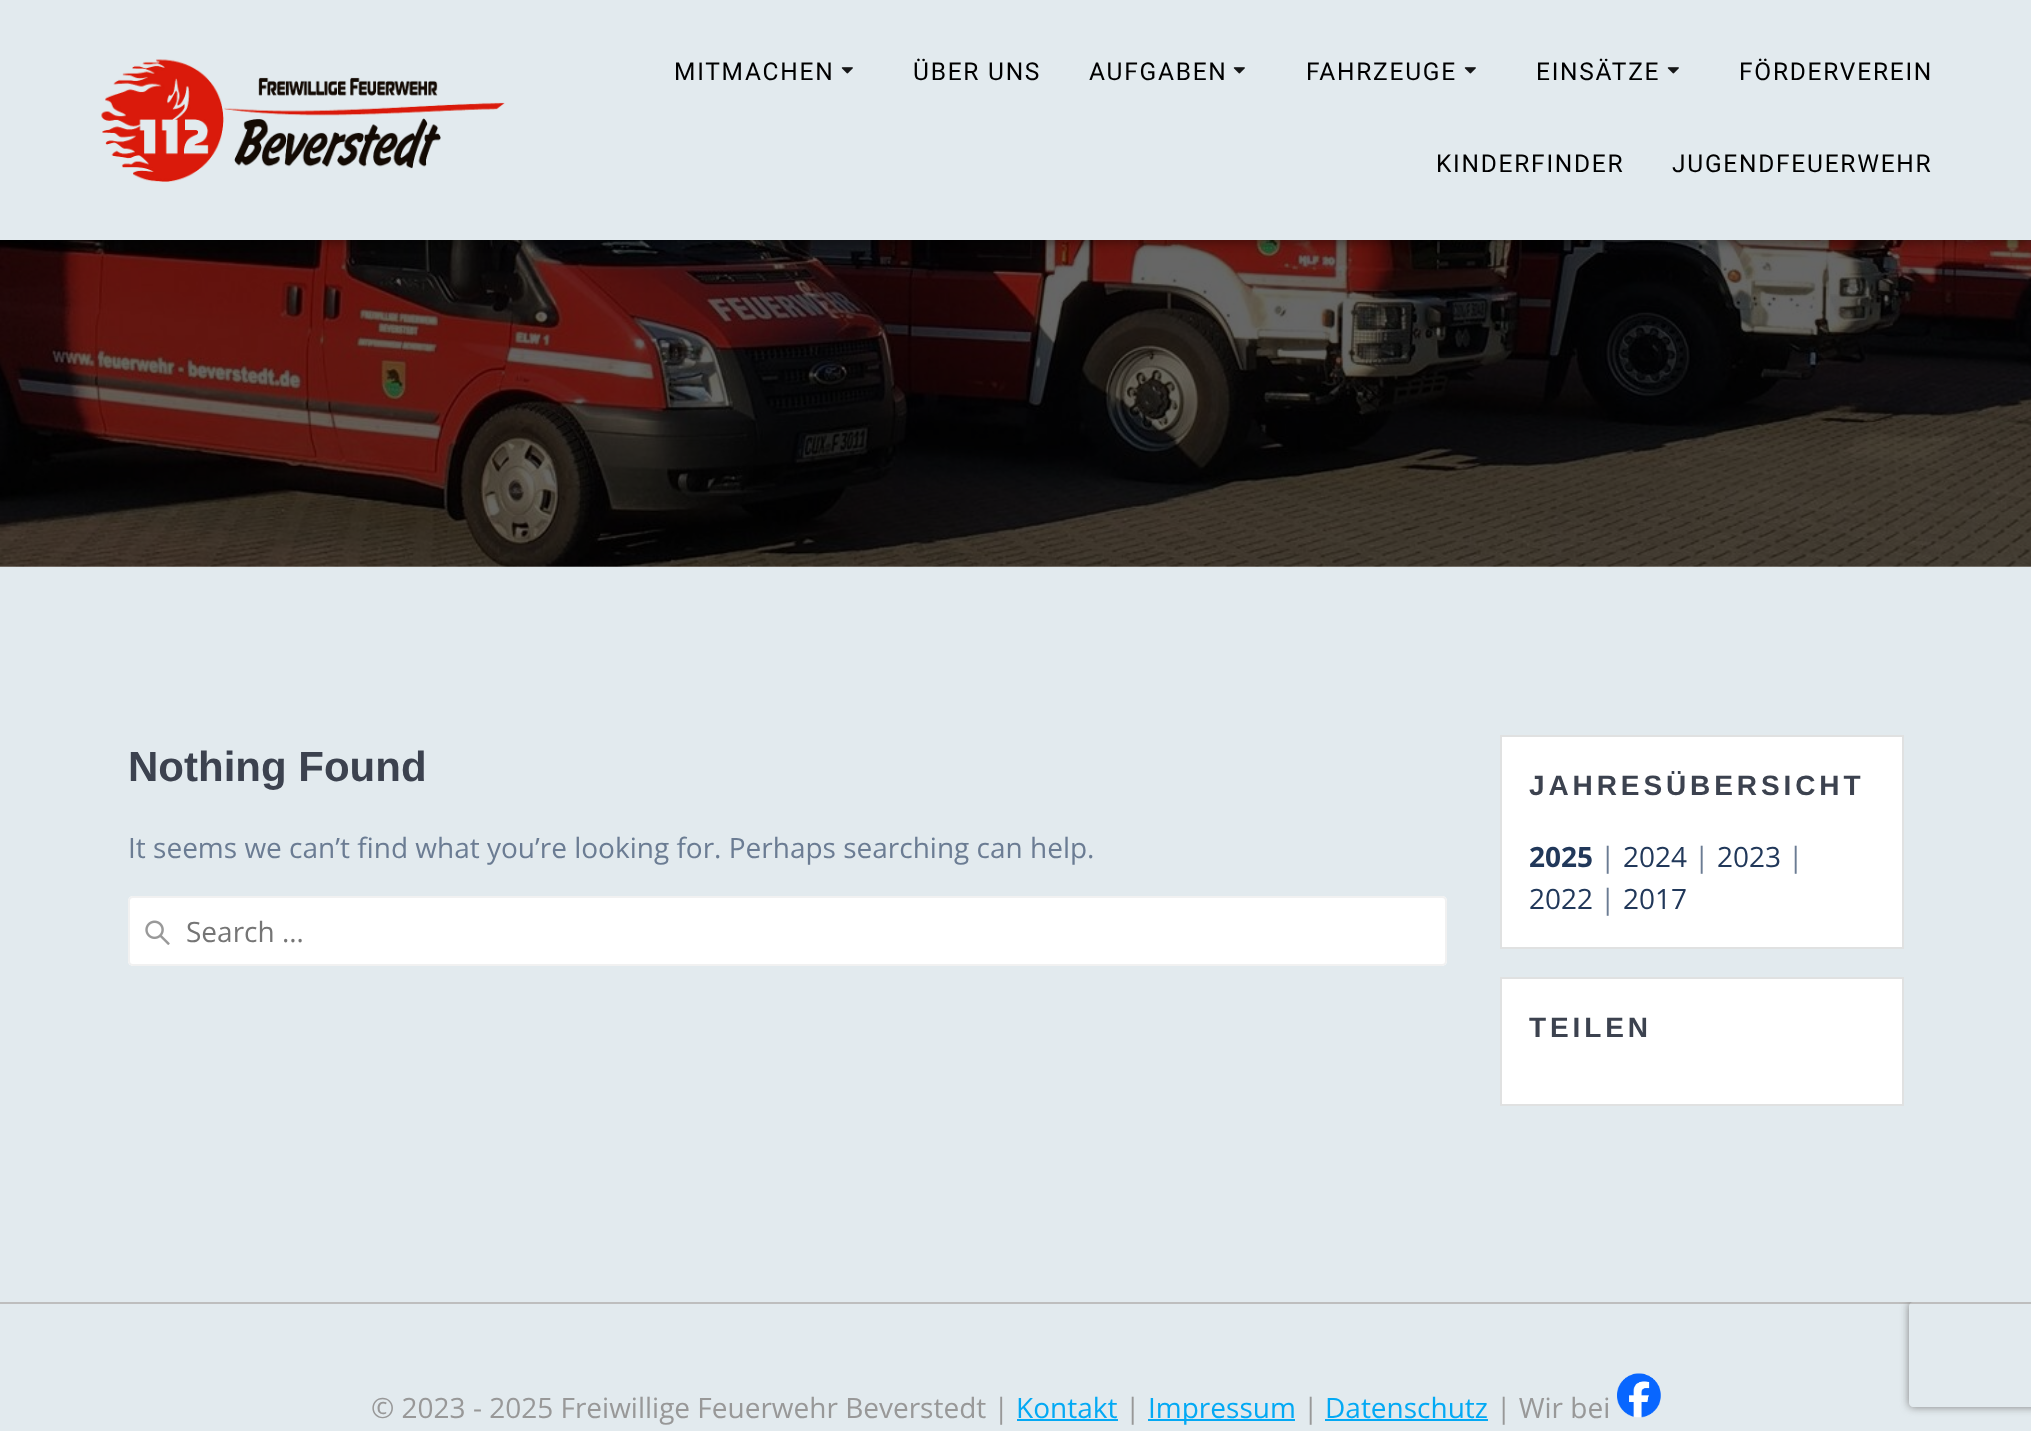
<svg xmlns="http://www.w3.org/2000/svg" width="2031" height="1431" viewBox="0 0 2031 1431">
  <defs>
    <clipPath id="clip1"><path d="M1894 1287H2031V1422H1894ZM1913 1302H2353C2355 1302 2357 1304 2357 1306V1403C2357 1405 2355 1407 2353 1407H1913C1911 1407 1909 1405 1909 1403V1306C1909 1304 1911 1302 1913 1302Z" clip-rule="evenodd"/></clipPath>
  </defs>
  <rect width="100%" height="100%" fill="rgb(255,255,255)"/>
  <image x="0" y="240" width="2031" height="327" href="pic3.png"/>
  <rect x="-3" y="-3" width="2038" height="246" fill="rgba(0,0,0,0.33)" filter="blur(4.5px)"/>
  <rect x="0" y="0" width="2031" height="240" fill="rgb(226,234,238)"/>
  <image x="101" y="59" width="404" height="123" href="pic1.png"/>
  <text x="674" y="80" font-family="Roboto" font-size="24.5" letter-spacing="1.75" fill="rgb(0,0,0)">MITMACHEN</text>
  <image x="841" y="67" width="12" height="7" href="pic2.png"/>
  <g font-family="Roboto" font-size="24.5" letter-spacing="1.75" fill="rgb(0,0,0)">
    <text x="913" y="80">ÜBER UNS</text>
    <text x="1089" y="80">AUFGABEN</text>
  </g>
  <image x="1233" y="67" width="12" height="7" href="pic2.png"/>
  <text x="1306" y="80" font-family="Roboto" font-size="24.5" letter-spacing="1.75" fill="rgb(0,0,0)">FAHRZEUGE</text>
  <image x="1464" y="67" width="12" height="7" href="pic2.png"/>
  <text x="1536" y="80" font-family="Roboto" font-size="24.5" letter-spacing="1.75" fill="rgb(0,0,0)">EINSÄTZE</text>
  <image x="1667" y="67" width="12" height="7" href="pic2.png"/>
  <g font-family="Roboto" font-size="24.5" letter-spacing="1.75" fill="rgb(0,0,0)">
    <text x="1739" y="80">FÖRDERVEREIN</text>
    <text x="1436" y="172">KINDERFINDER</text>
    <text x="1672" y="172">JUGENDFEUERWEHR</text>
  </g>
  <image x="1830" y="294" width="38" height="34" href="pic4.png"/>
  <rect x="0" y="1304" width="2031" height="127" fill="rgb(226,234,238)"/>
  <rect x="0" y="1302" width="2031" height="2" fill="rgb(190,190,190)"/>
  <g clip-path="url(#clip1)">
    <rect x="1909" y="1302" width="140" height="105" rx="4" fill="rgb(128,128,128)" filter="blur(4.5px)"/>
  </g>
  <rect x="0" y="567" width="2031" height="735" fill="rgb(226,234,238)"/>
  <text x="128" y="781" font-family="Liberation Sans" font-size="42" font-weight="bold" fill="rgb(60,66,79)">Nothing Found</text>
  <text x="128" y="858" font-family="Open Sans" font-size="28" fill="rgb(107,124,147)">It seems we can’t find what you’re looking for. Perhaps searching can help.</text>
  <rect x="128" y="896" width="1319" height="70" rx="5" fill="rgb(255,255,255)"/>
  <image x="145" y="920" width="25" height="25" href="pic5.png"/>
  <rect x="129" y="897" width="1317" height="68" rx="4" fill="none" stroke="rgb(241,241,241)" stroke-width="2"/>
  <text x="186" y="942" font-family="Open Sans" font-size="28" fill="rgb(117,117,117)">Search …</text>
  <rect x="1501" y="736" width="402" height="212" fill="rgb(255,255,255)" stroke="rgb(224,225,225)" stroke-width="2"/>
  <text x="1529" y="795" font-family="Liberation Sans" font-size="28" font-weight="bold" letter-spacing="3.9" fill="rgb(60,66,79)">JAHRESÜBERSICHT</text>
  <text x="1529" y="867" font-family="Open Sans" font-size="28" font-weight="bold" fill="rgb(33,56,90)">2025</text>
  <text x="1600" y="867" font-family="Open Sans" font-size="28" fill="rgb(107,124,147)">|</text>
  <text x="1623" y="867" font-family="Open Sans" font-size="28" fill="rgb(33,56,90)">2024</text>
  <text x="1694" y="867" font-family="Open Sans" font-size="28" fill="rgb(107,124,147)">|</text>
  <text x="1717" y="867" font-family="Open Sans" font-size="28" fill="rgb(33,56,90)">2023</text>
  <text x="1788" y="867" font-family="Open Sans" font-size="28" fill="rgb(107,124,147)">|</text>
  <text x="1529" y="909" font-family="Open Sans" font-size="28" fill="rgb(33,56,90)">2022</text>
  <text x="1600" y="909" font-family="Open Sans" font-size="28" fill="rgb(107,124,147)">|</text>
  <text x="1623" y="909" font-family="Open Sans" font-size="28" fill="rgb(33,56,90)">2017</text>
  <rect x="1501" y="978" width="402" height="127" fill="rgb(255,255,255)" stroke="rgb(224,225,225)" stroke-width="2"/>
  <text x="1529" y="1037" font-family="Liberation Sans" font-size="28" font-weight="bold" letter-spacing="3.9" fill="rgb(60,66,79)">TEILEN</text>
  <text x="371" y="1418" font-family="Open Sans" font-size="28" fill="rgb(152,152,152)">© 2023 - 2025 Freiwillige Feuerwehr Beverstedt |</text>
  <text x="1016" y="1418" font-family="Open Sans" font-size="28" fill="rgb(3,169,244)">Kontakt</text>
  <rect x="1017" y="1419" width="101" height="2" fill="rgb(3,169,244)"/>
  <text x="1125" y="1418" font-family="Open Sans" font-size="28" fill="rgb(152,152,152)">|</text>
  <rect x="1148" y="1419" width="147" height="2" fill="rgb(3,169,244)"/>
  <text x="1148" y="1418" font-family="Open Sans" font-size="28" fill="rgb(3,169,244)">Impressum</text>
  <text x="1303" y="1418" font-family="Open Sans" font-size="28" fill="rgb(152,152,152)">|</text>
  <text x="1325" y="1418" font-family="Open Sans" font-size="28" fill="rgb(3,169,244)">Datenschutz</text>
  <rect x="1325" y="1419" width="163" height="2" fill="rgb(3,169,244)"/>
  <text x="1496" y="1418" font-family="Open Sans" font-size="28" fill="rgb(152,152,152)">| Wir bei</text>
  <image x="1617" y="1373" width="44" height="45" href="pic6.png"/>
</svg>
